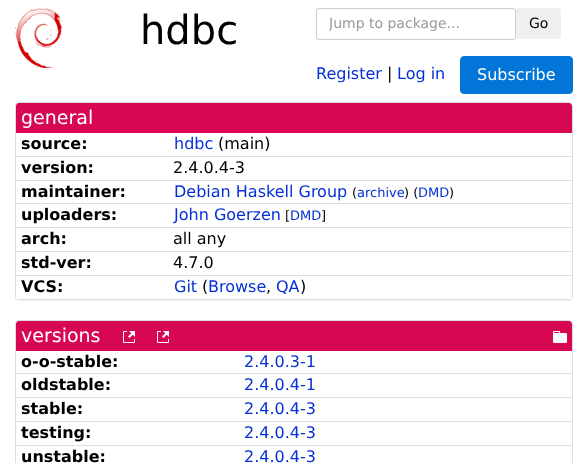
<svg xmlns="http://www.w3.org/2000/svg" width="588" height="463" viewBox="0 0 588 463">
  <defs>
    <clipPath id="clip1"><rect x="329" y="15" width="170" height="16"/></clipPath>
  </defs>
  <rect width="100%" height="100%" fill="rgb(255,255,255)"/>
  <image x="15" y="8" width="47" height="60" href="pic1.png"/>
  <text x="140" y="44" font-family="DejaVu Sans" font-size="40" fill="rgb(0,0,0)">hdbc</text>
  <rect x="316.5" y="8.5" width="199" height="31" rx="2.5" fill="none" stroke="rgb(204,204,204)"/>
  <g clip-path="url(#clip1)">
    <text x="329" y="28" font-family="DejaVu Sans" font-size="14" fill="rgb(153,153,153)">Jump to package...</text>
  </g>
  <rect x="516" y="8" width="45" height="31" rx="3" fill="rgb(239,239,239)"/>
  <text x="529" y="28" font-family="DejaVu Sans" font-size="14" fill="rgb(0,0,0)">Go</text>
  <text x="316" y="79" font-family="DejaVu Sans" font-size="16" fill="rgb(5,48,215)">Register</text>
  <text x="387" y="79" font-family="DejaVu Sans" font-size="16" fill="rgb(0,0,0)">|</text>
  <text x="397" y="79" font-family="DejaVu Sans" font-size="16" fill="rgb(5,48,215)">Log in</text>
  <rect x="460.5" y="56.5" width="112" height="37" rx="3.5" fill="rgb(2,117,216)" stroke="rgb(2,117,216)"/>
  <text x="477" y="80" font-family="DejaVu Sans" font-size="16" fill="rgb(255,255,255)">Subscribe</text>
  <rect x="15" y="103" width="558" height="198" rx="4" fill="rgba(0,0,0,0.05)" filter="blur(0.5px)"/>
  <rect x="15.5" y="102.5" width="557" height="197" rx="3.5" fill="none" stroke="rgb(221,221,221)"/>
  <path d="M19 103H569C570.5 103 572 104.5 572 106V134H16V106C16 104.5 17.5 103 19 103Z" fill="rgb(215,7,81)"/>
  <text x="21" y="124" font-family="DejaVu Sans" font-size="19" fill="rgb(255,255,255)">general</text>
  <rect x="16" y="133" width="556" height="166" fill="rgb(255,255,255)"/>
  <rect x="16" y="156" width="556" height="1" fill="rgb(221,221,221)"/>
  <text x="21" y="149" font-family="DejaVu Sans" font-size="16" font-weight="bold" fill="rgb(0,0,0)">source:</text>
  <text x="174" y="149" font-family="DejaVu Sans" font-size="16" fill="rgb(5,48,215)">hdbc</text>
  <text x="218" y="149" font-family="DejaVu Sans" font-size="16" fill="rgb(0,0,0)">(main)</text>
  <rect x="16" y="180" width="556" height="1" fill="rgb(221,221,221)"/>
  <text x="21" y="173" font-family="DejaVu Sans" font-size="16" font-weight="bold" fill="rgb(0,0,0)">version:</text>
  <text x="173" y="173" font-family="DejaVu Sans" font-size="16" fill="rgb(0,0,0)">2.4.0.4-3</text>
  <rect x="16" y="203" width="556" height="1" fill="rgb(221,221,221)"/>
  <text x="21" y="197" font-family="DejaVu Sans" font-size="16" font-weight="bold" fill="rgb(0,0,0)">maintainer:</text>
  <text x="174" y="197" font-family="DejaVu Sans" font-size="16" fill="rgb(5,48,215)">Debian Haskell Group</text>
  <text x="352" y="197" font-family="DejaVu Sans" font-size="13" fill="rgb(0,0,0)">(</text>
  <text x="357" y="197" font-family="DejaVu Sans" font-size="13" fill="rgb(5,48,215)">archive</text>
  <text x="404" y="197" font-family="DejaVu Sans" font-size="13" fill="rgb(0,0,0)">) (</text>
  <text x="418" y="197" font-family="DejaVu Sans" font-size="13" fill="rgb(5,48,215)">DMD</text>
  <text x="449" y="197" font-family="DejaVu Sans" font-size="13" fill="rgb(0,0,0)">)</text>
  <rect x="16" y="227" width="556" height="1" fill="rgb(221,221,221)"/>
  <text x="21" y="220" font-family="DejaVu Sans" font-size="16" font-weight="bold" fill="rgb(0,0,0)">uploaders:</text>
  <text x="174" y="220" font-family="DejaVu Sans" font-size="16" fill="rgb(5,48,215)">John Goerzen</text>
  <text x="285" y="220" font-family="DejaVu Sans" font-size="13" fill="rgb(0,0,0)">[</text>
  <text x="290" y="220" font-family="DejaVu Sans" font-size="13" fill="rgb(5,48,215)">DMD</text>
  <text x="321" y="220" font-family="DejaVu Sans" font-size="13" fill="rgb(0,0,0)">]</text>
  <rect x="16" y="251" width="556" height="1" fill="rgb(221,221,221)"/>
  <text x="21" y="244" font-family="DejaVu Sans" font-size="16" font-weight="bold" fill="rgb(0,0,0)">arch:</text>
  <text x="173" y="244" font-family="DejaVu Sans" font-size="16" fill="rgb(0,0,0)">all any</text>
  <text x="21" y="268" font-family="DejaVu Sans" font-size="16" font-weight="bold" fill="rgb(0,0,0)">std-ver:</text>
  <text x="173" y="268" font-family="DejaVu Sans" font-size="16" fill="rgb(0,0,0)">4.7.0</text>
  <rect x="16" y="275" width="556" height="1" fill="rgb(221,221,221)"/>
  <text x="21" y="292" font-family="DejaVu Sans" font-size="16" font-weight="bold" fill="rgb(0,0,0)">VCS:</text>
  <text x="174" y="292" font-family="DejaVu Sans" font-size="16" fill="rgb(5,48,215)">Git</text>
  <text x="202" y="292" font-family="DejaVu Sans" font-size="16" fill="rgb(0,0,0)">(</text>
  <text x="208" y="292" font-family="DejaVu Sans" font-size="16" fill="rgb(5,48,215)">Browse</text>
  <text x="266" y="292" font-family="DejaVu Sans" font-size="16" fill="rgb(0,0,0)">,</text>
  <text x="276" y="292" font-family="DejaVu Sans" font-size="16" fill="rgb(5,48,215)">QA</text>
  <text x="300" y="292" font-family="DejaVu Sans" font-size="16" fill="rgb(0,0,0)">)</text>
  <rect x="15.5" y="320.5" width="557" height="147" rx="3.5" fill="none" stroke="rgb(221,221,221)"/>
  <path d="M19 321H569C570.5 321 572 322.5 572 324V352H16V324C16 322.5 17.5 321 19 321Z" fill="rgb(215,7,81)"/>
  <text x="21" y="342" font-family="DejaVu Sans" font-size="19" fill="rgb(255,255,255)">versions</text>
  <image x="123" y="331" width="12" height="12" href="pic2.png"/>
  <image x="157" y="331" width="12" height="12" href="pic2.png"/>
  <image x="553" y="331" width="14" height="12" href="pic3.png"/>
  <rect x="16" y="351" width="556" height="1" fill="rgb(255,255,255)"/>
  <rect x="16" y="373" width="556" height="1" fill="rgb(221,221,221)"/>
  <text x="21" y="367" font-family="DejaVu Sans" font-size="16" font-weight="bold" fill="rgb(0,0,0)">o-o-stable:</text>
  <text x="244" y="367" font-family="DejaVu Sans" font-size="16" fill="rgb(5,48,215)">2.4.0.3-1</text>
  <rect x="16" y="397" width="556" height="1" fill="rgb(221,221,221)"/>
  <text x="21" y="390" font-family="DejaVu Sans" font-size="16" font-weight="bold" fill="rgb(0,0,0)">oldstable:</text>
  <text x="244" y="390" font-family="DejaVu Sans" font-size="16" fill="rgb(5,48,215)">2.4.0.4-1</text>
  <rect x="16" y="421" width="556" height="1" fill="rgb(221,221,221)"/>
  <text x="21" y="414" font-family="DejaVu Sans" font-size="16" font-weight="bold" fill="rgb(0,0,0)">stable:</text>
  <text x="244" y="414" font-family="DejaVu Sans" font-size="16" fill="rgb(5,48,215)">2.4.0.4-3</text>
  <text x="21" y="438" font-family="DejaVu Sans" font-size="16" font-weight="bold" fill="rgb(0,0,0)">testing:</text>
  <text x="244" y="438" font-family="DejaVu Sans" font-size="16" fill="rgb(5,48,215)">2.4.0.4-3</text>
  <rect x="16" y="445" width="556" height="1" fill="rgb(221,221,221)"/>
  <text x="21" y="462" font-family="DejaVu Sans" font-size="16" font-weight="bold" fill="rgb(0,0,0)">unstable:</text>
  <text x="244" y="462" font-family="DejaVu Sans" font-size="16" fill="rgb(5,48,215)">2.4.0.4-3</text>
</svg>
